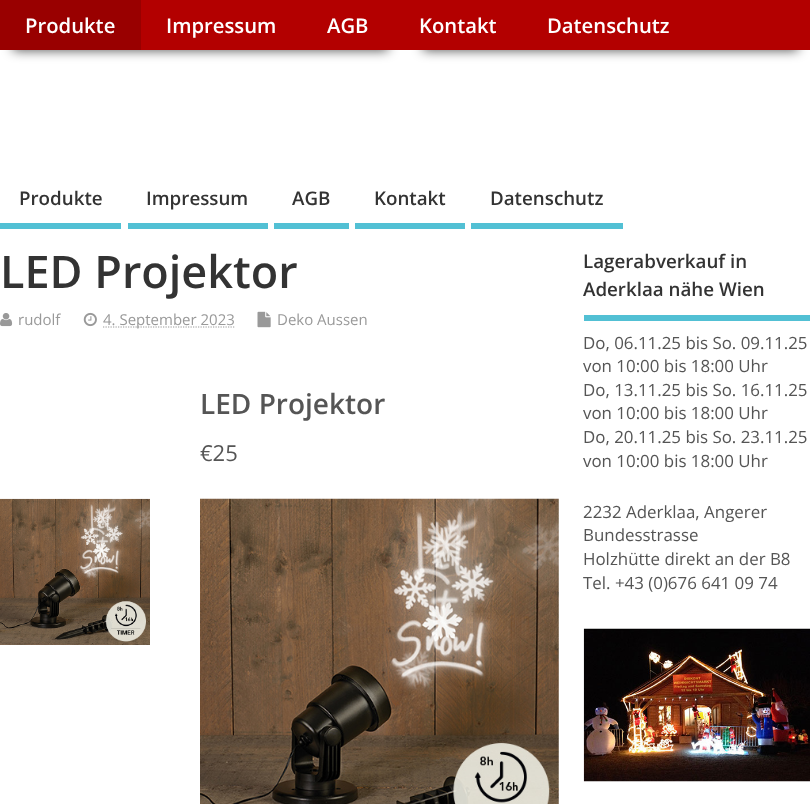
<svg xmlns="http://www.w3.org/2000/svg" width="810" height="804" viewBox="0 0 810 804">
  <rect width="100%" height="100%" fill="rgb(255,255,255)"/>
  <rect x="13" y="40" width="375" height="10" fill="rgba(0,0,0,0.75)" filter="blur(6px)"/>
  <rect x="423" y="40" width="375" height="10" fill="rgba(0,0,0,0.75)" filter="blur(6px)"/>
  <rect x="141" y="0" width="669" height="50" fill="rgb(179,0,0)"/>
  <rect x="0" y="0" width="141" height="50" fill="rgb(153,0,0)"/>
  <g font-family="Open Sans" font-size="20.25" font-weight="600" fill="rgb(255,255,255)">
    <text x="25" y="33">Produkte</text>
    <text x="166" y="33">Impressum</text>
    <text x="327" y="33">AGB</text>
    <text x="419" y="33">Kontakt</text>
    <text x="547" y="33">Datenschutz</text>
  </g>
  <rect x="0" y="223" width="121" height="6" fill="rgb(82,192,212)"/>
  <text x="19" y="205" font-family="Open Sans" font-size="18.75" font-weight="600" fill="rgb(51,51,51)">Produkte</text>
  <rect x="128" y="223" width="140" height="6" fill="rgb(82,192,212)"/>
  <text x="146" y="205" font-family="Open Sans" font-size="18.75" font-weight="600" fill="rgb(51,51,51)">Impressum</text>
  <rect x="274" y="223" width="75" height="6" fill="rgb(82,192,212)"/>
  <text x="292" y="205" font-family="Open Sans" font-size="18.75" font-weight="600" fill="rgb(51,51,51)">AGB</text>
  <rect x="355" y="223" width="110" height="6" fill="rgb(82,192,212)"/>
  <text x="374" y="205" font-family="Open Sans" font-size="18.75" font-weight="600" fill="rgb(51,51,51)">Kontakt</text>
  <rect x="471" y="223" width="152" height="6" fill="rgb(82,192,212)"/>
  <text x="490" y="205" font-family="Open Sans" font-size="18.75" font-weight="600" fill="rgb(51,51,51)">Datenschutz</text>
  <text x="0" y="288" font-family="Open Sans" font-size="45" font-weight="600" fill="rgb(51,51,51)">LED Projektor</text>
  <image x="0" y="313" width="13" height="14" href="pic1.png"/>
  <text x="18" y="325" font-family="Open Sans" font-size="15" fill="rgb(153,153,153)">rudolf</text>
  <image x="83" y="312" width="14" height="15" href="pic2.png"/>
  <path d="M103 327H234.5" fill="none" stroke="rgb(153,153,153)" stroke-width="1.2" stroke-dasharray="1.25 1.25"/>
  <text x="103" y="325" font-family="Open Sans" font-size="15" fill="rgb(153,153,153)">4. September 2023</text>
  <image x="257" y="311" width="14" height="17" href="pic3.png"/>
  <text x="277" y="325" font-family="Open Sans" font-size="15" fill="rgb(153,153,153)">Deko Aussen</text>
  <text x="200" y="414" font-family="Open Sans" font-size="28" font-weight="600" fill="rgb(85,85,85)">LED Projektor</text>
  <text x="200" y="461" font-family="Open Sans" font-size="22" fill="rgb(85,85,85)">€25</text>
  <image x="0" y="498" width="150" height="147" href="pic4.png"/>
  <image x="200" y="498" width="359" height="306" href="pic5.png"/>
  <rect x="584" y="315" width="226" height="6" fill="rgb(82,192,212)"/>
  <g font-family="Open Sans" font-size="18.75" font-weight="600" fill="rgb(51,51,51)">
    <text>
      <tspan x="583" y="268">Lagerabverkauf in</tspan>
      <tspan x="583" y="296">Aderklaa nähe Wien</tspan>
    </text>
  </g>
  <g font-family="Open Sans" font-size="16.9" fill="rgb(85,85,85)">
    <text>
      <tspan x="583" y="349">Do, 06.11.25 bis So. 09.11.25</tspan>
      <tspan x="583" y="372">von 10:00 bis 18:00 Uhr</tspan>
      <tspan x="583" y="396">Do, 13.11.25 bis So. 16.11.25</tspan>
      <tspan x="583" y="419">von 10:00 bis 18:00 Uhr</tspan>
      <tspan x="583" y="443">Do, 20.11.25 bis So. 23.11.25</tspan>
      <tspan x="583" y="467">von 10:00 bis 18:00 Uhr</tspan>
    </text>
    <text>
      <tspan x="583" y="518">2232 Aderklaa, Angerer</tspan>
      <tspan x="583" y="541">Bundesstrasse</tspan>
      <tspan x="583" y="565">Holzhütte direkt an der B8</tspan>
      <tspan x="583" y="589">Tel. +43 (0)676 641 09 74</tspan>
    </text>
  </g>
  <image x="583" y="628" width="227" height="154" href="pic6.png"/>
</svg>
